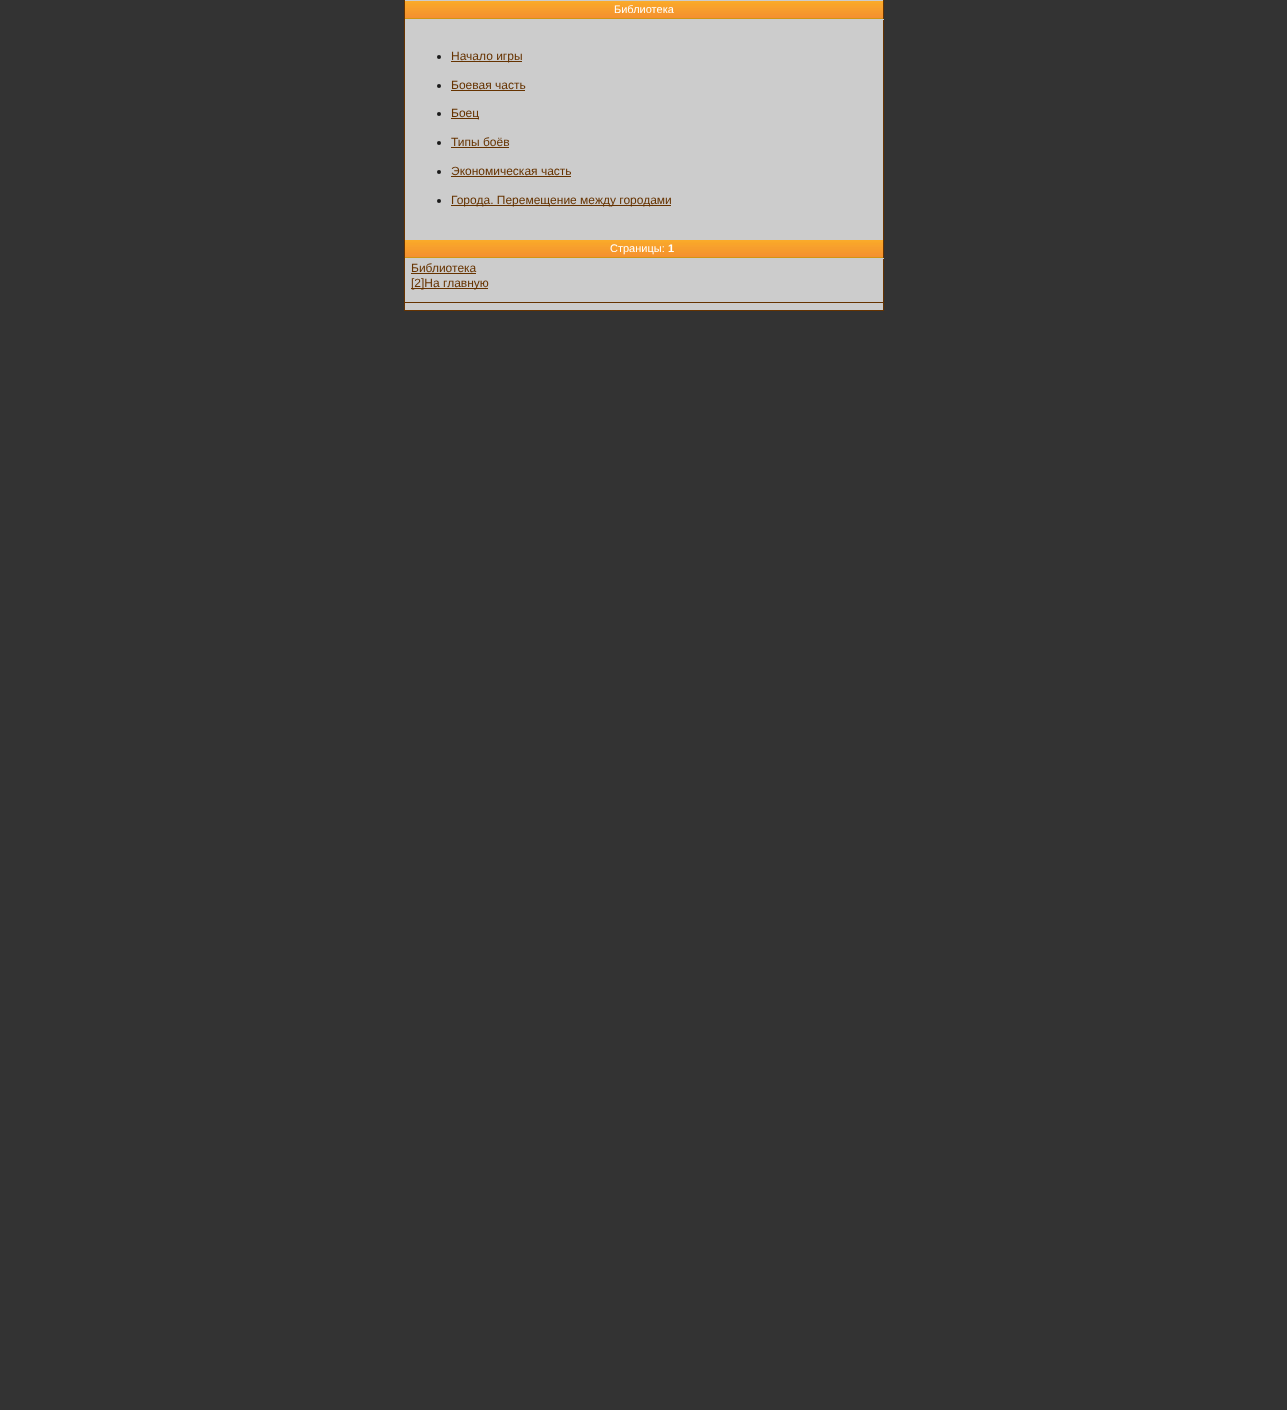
<svg xmlns="http://www.w3.org/2000/svg" width="1287" height="1410" viewBox="0 0 1287 1410">
  <rect width="100%" height="100%" fill="rgb(51,51,51)"/>
  <rect x="405" y="18" width="478" height="1" fill="rgb(210,149,19)"/>
  <image x="405" y="1" width="478" height="17" href="pic1.png"/>
  <rect x="404" y="0" width="480" height="1" fill="rgb(204,204,204)"/>
  <rect x="883" y="0" width="1" height="239" fill="rgb(102,51,0)"/>
  <rect x="404" y="19" width="480" height="1" fill="rgb(204,204,204)"/>
  <rect x="404" y="0" width="1" height="239" fill="rgb(102,51,0)"/>
  <text x="614" y="13" font-family="Liberation Sans" font-size="11" fill="rgb(255,255,255)">Библиотека</text>
  <rect x="405" y="20" width="478" height="219" fill="rgb(204,204,204)"/>
  <circle cx="439" cy="57" r="2" fill="rgb(26,26,26)"/>
  <rect x="451" y="61" width="71" height="1" fill="rgb(102,51,0)"/>
  <text x="451" y="60" font-family="Liberation Sans" font-size="12" fill="rgb(102,51,0)">Начало игры</text>
  <circle cx="439" cy="86" r="2" fill="rgb(26,26,26)"/>
  <text x="451" y="89" font-family="Liberation Sans" font-size="12" fill="rgb(102,51,0)">Боевая часть</text>
  <rect x="451" y="90" width="74" height="1" fill="rgb(102,51,0)"/>
  <circle cx="439" cy="114" r="2" fill="rgb(26,26,26)"/>
  <rect x="451" y="118" width="28" height="1" fill="rgb(102,51,0)"/>
  <text x="451" y="117" font-family="Liberation Sans" font-size="12" fill="rgb(102,51,0)">Боец</text>
  <circle cx="439" cy="143" r="2" fill="rgb(26,26,26)"/>
  <text x="451" y="146" font-family="Liberation Sans" font-size="12" fill="rgb(102,51,0)">Типы боёв</text>
  <rect x="451" y="147" width="58" height="1" fill="rgb(102,51,0)"/>
  <circle cx="439" cy="172" r="2" fill="rgb(26,26,26)"/>
  <text x="451" y="175" font-family="Liberation Sans" font-size="12" fill="rgb(102,51,0)">Экономическая часть</text>
  <rect x="451" y="176" width="120" height="1" fill="rgb(102,51,0)"/>
  <circle cx="439" cy="201" r="2" fill="rgb(26,26,26)"/>
  <rect x="451" y="205" width="220" height="1" fill="rgb(102,51,0)"/>
  <text x="451" y="204" font-family="Liberation Sans" font-size="12" fill="rgb(102,51,0)">Города. Перемещение между городами</text>
  <rect x="405" y="257" width="478" height="1" fill="rgb(210,149,19)"/>
  <image x="405" y="240" width="478" height="17" href="pic1.png"/>
  <rect x="404" y="239" width="480" height="1" fill="rgb(204,204,204)"/>
  <rect x="883" y="239" width="1" height="72" fill="rgb(102,51,0)"/>
  <rect x="404" y="258" width="480" height="1" fill="rgb(204,204,204)"/>
  <rect x="404" y="239" width="1" height="56" fill="rgb(102,51,0)"/>
  <text x="610" y="252" font-family="Liberation Sans" font-size="11" fill="rgb(255,255,255)">Страницы:</text>
  <text x="668" y="252" font-family="Liberation Sans" font-size="11" font-weight="bold" fill="rgb(255,255,255)">1</text>
  <rect x="405" y="259" width="478" height="43" fill="rgb(204,204,204)"/>
  <text x="411" y="272" font-family="Liberation Sans" font-size="12" fill="rgb(102,51,0)">Библиотека</text>
  <rect x="411" y="273" width="65" height="1" fill="rgb(102,51,0)"/>
  <rect x="411" y="288" width="77" height="1" fill="rgb(102,51,0)"/>
  <text x="411" y="287" font-family="Liberation Sans" font-size="12" fill="rgb(102,51,0)">[2]На главную</text>
  <rect x="404" y="302" width="480" height="1" fill="rgb(102,51,0)"/>
  <rect x="404" y="295" width="1" height="8" fill="rgb(102,51,0)"/>
  <rect x="405" y="303" width="478" height="7" fill="rgb(204,204,204)"/>
  <rect x="404" y="310" width="480" height="1" fill="rgb(102,51,0)"/>
  <rect x="404" y="303" width="1" height="8" fill="rgb(102,51,0)"/>
</svg>
